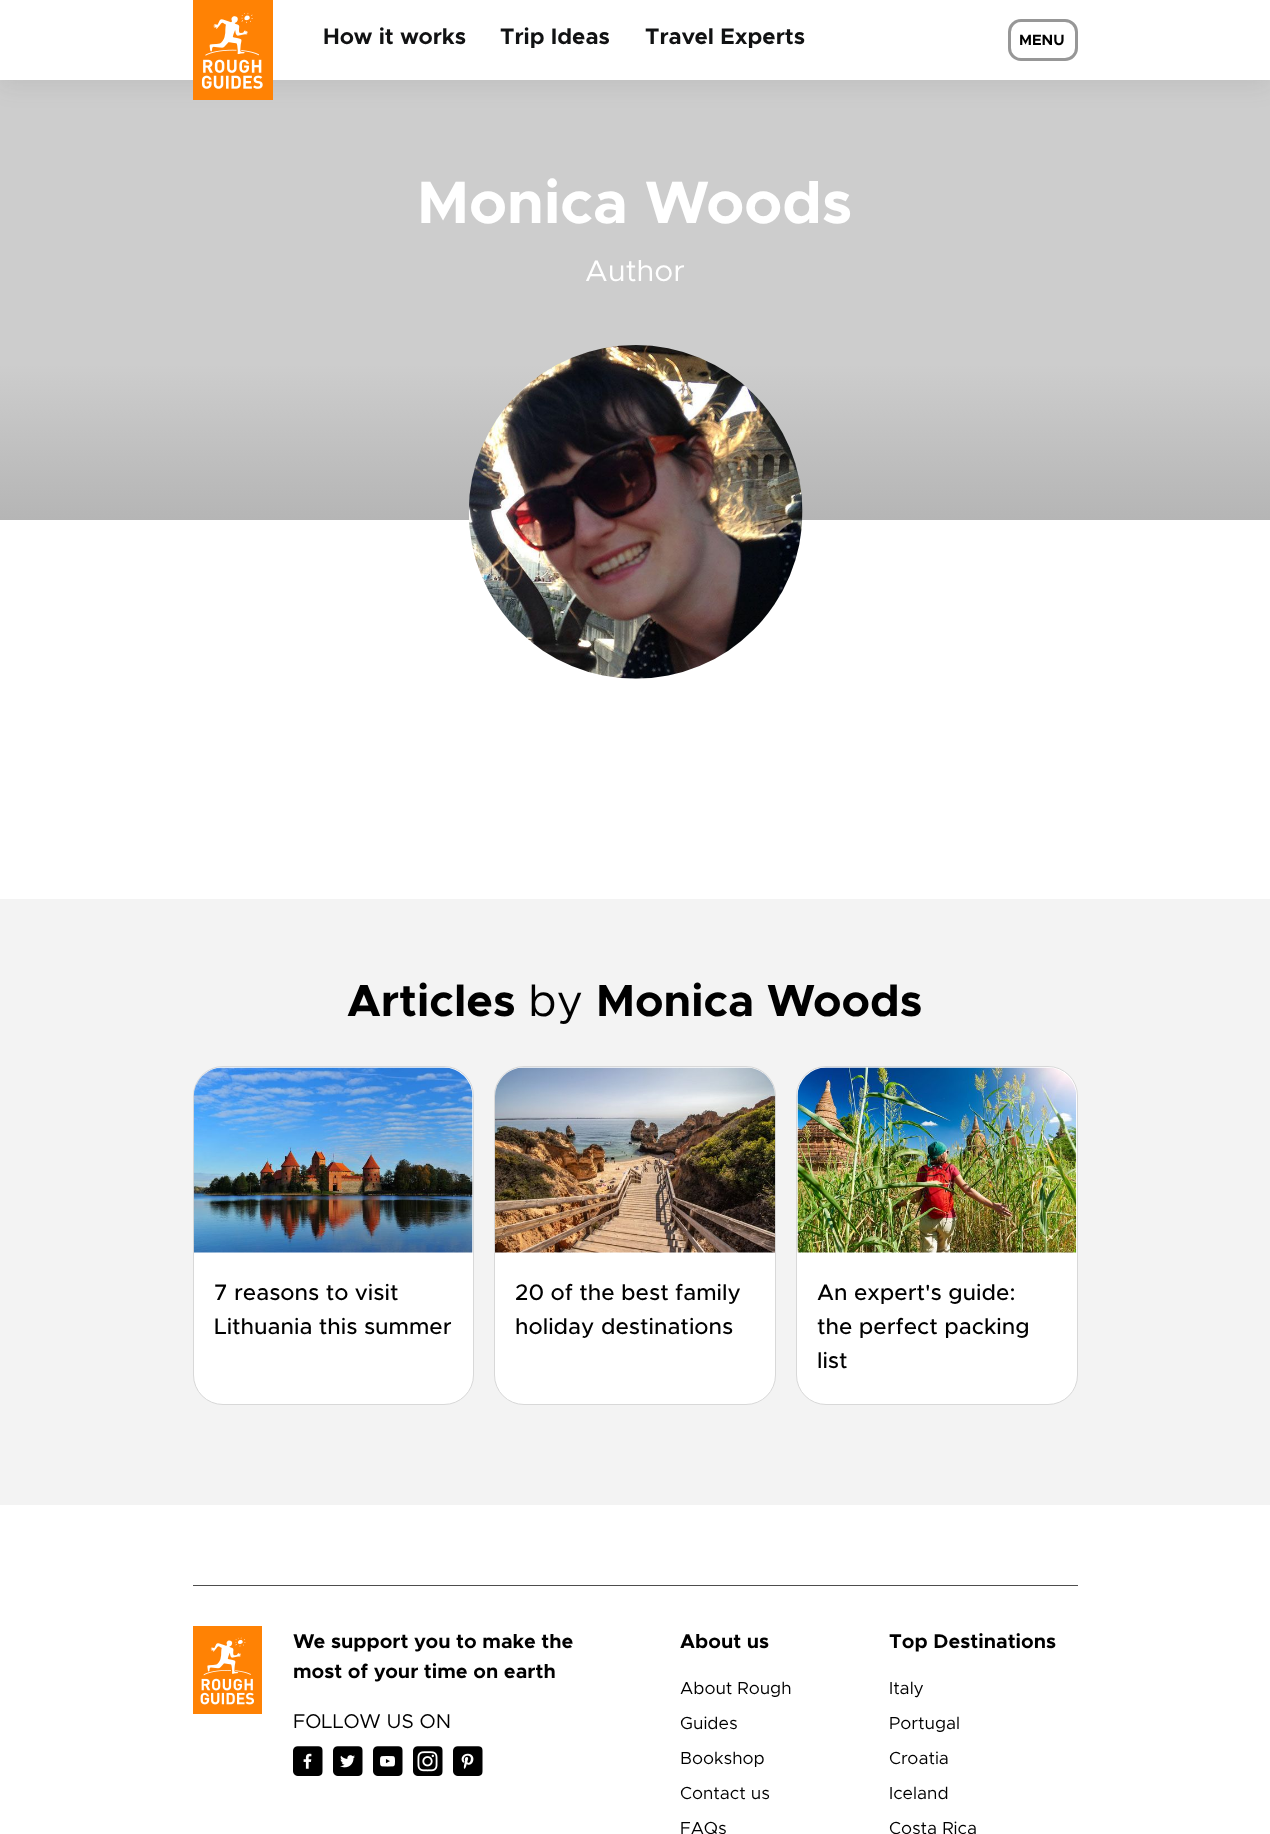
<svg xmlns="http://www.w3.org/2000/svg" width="1270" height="1834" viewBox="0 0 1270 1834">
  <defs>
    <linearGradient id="g1" gradientUnits="userSpaceOnUse" x1="635" y1="520" x2="635" y2="0"><stop offset="0" stop-color="rgb(181,181,181)"/><stop offset="0.3" stop-color="rgb(205,205,205)"/></linearGradient>
  </defs>
  <rect width="100%" height="100%" fill="rgb(255,255,255)"/>
  <rect x="0" y="80" width="1270" height="440" fill="url(#g1)"/>
  <rect x="0" y="5" width="1270" height="80" fill="rgba(70,70,70,0.1)" filter="blur(12.5px)"/>
  <rect x="0" y="0" width="1270" height="80" fill="rgb(255,255,255)"/>
  <rect x="193" y="0" width="80" height="100" fill="rgb(255,130,4)"/>
  <image x="201" y="12" width="62" height="77" href="pic1.png"/>
  <g font-family="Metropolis" font-size="22.5" font-weight="bold" fill="rgb(17,18,19)">
    <text x="323" y="44">How it works</text>
    <text x="500" y="44">Trip Ideas</text>
    <text x="645" y="44">Travel Experts</text>
  </g>
  <rect x="1009.5" y="20.5" width="67" height="39" rx="11.5" fill="none" stroke="rgb(151,151,151)" stroke-width="3"/>
  <text x="1019" y="45" font-family="Metropolis" font-size="15" font-weight="bold" fill="rgb(0,0,0)">MENU</text>
  <text x="417" y="223" font-family="Metropolis" font-size="60" font-weight="bold" fill="rgb(255,255,255)">Monica Woods</text>
  <text x="585" y="281" font-family="Metropolis" font-size="30" fill="rgb(255,255,255)">Author</text>
  <image x="468" y="345" width="335" height="334" href="pic2.png"/>
  <rect x="0" y="899" width="1270" height="606" fill="rgb(243,243,243)"/>
  <text x="347" y="1016" font-family="Metropolis" font-size="45" font-weight="bold" fill="rgb(0,0,0)">Articles</text>
  <text x="528" y="1016" font-family="Metropolis" font-size="45" fill="rgb(0,0,0)">by</text>
  <text x="596" y="1016" font-family="Metropolis" font-size="45" font-weight="bold" fill="rgb(0,0,0)">Monica Woods</text>
  <rect x="193.5" y="1066.5" width="280" height="338" rx="29.5" fill="rgb(255,255,255)" stroke="rgb(216,216,216)"/>
  <image x="193" y="1067" width="280" height="186" href="pic3.png"/>
  <g font-family="Metropolis" font-size="22.5" font-weight="500" fill="rgb(0,0,0)">
    <text>
      <tspan x="214" y="1300">7 reasons to visit</tspan>
      <tspan x="214" y="1334">Lithuania this summer</tspan>
    </text>
  </g>
  <rect x="494.5" y="1066.5" width="281" height="338" rx="29.5" fill="rgb(255,255,255)" stroke="rgb(216,216,216)"/>
  <image x="495" y="1067" width="280" height="186" href="pic4.png"/>
  <g font-family="Metropolis" font-size="22.5" font-weight="500" fill="rgb(0,0,0)">
    <text>
      <tspan x="515" y="1300">20 of the best family</tspan>
      <tspan x="515" y="1334">holiday destinations</tspan>
    </text>
  </g>
  <rect x="796.5" y="1066.5" width="281" height="338" rx="29.5" fill="rgb(255,255,255)" stroke="rgb(216,216,216)"/>
  <image x="797" y="1067" width="280" height="186" href="pic5.png"/>
  <g font-family="Metropolis" font-size="22.5" font-weight="500" fill="rgb(0,0,0)">
    <text>
      <tspan x="817" y="1300">An expert's guide:</tspan>
      <tspan x="817" y="1334">the perfect packing</tspan>
      <tspan x="817" y="1368">list</tspan>
    </text>
  </g>
  <rect x="193" y="1585" width="885" height="1" fill="rgb(77,77,77)"/>
  <image x="193" y="1626" width="69" height="88" href="pic6.png"/>
  <g font-family="Metropolis" font-size="20" font-weight="bold" fill="rgb(0,0,0)">
    <text>
      <tspan x="293" y="1648">We support you to make the</tspan>
      <tspan x="293" y="1678">most of your time on earth</tspan>
    </text>
  </g>
  <text x="293" y="1728" font-family="Metropolis" font-size="20" fill="rgb(0,0,0)">FOLLOW US ON</text>
  <image x="293" y="1746" width="30" height="30" href="pic7.png"/>
  <image x="333" y="1746" width="30" height="30" href="pic8.png"/>
  <image x="373" y="1746" width="30" height="30" href="pic9.png"/>
  <image x="413" y="1746" width="30" height="30" href="pic10.png"/>
  <image x="453" y="1746" width="30" height="30" href="pic11.png"/>
  <text x="680" y="1648" font-family="Metropolis" font-size="20" font-weight="bold" fill="rgb(0,0,0)">About us</text>
  <g font-family="Metropolis" font-size="17.5" fill="rgb(0,0,0)">
    <text x="680" y="1694">About Rough</text>
    <text x="680" y="1729">Guides</text>
    <text x="680" y="1764">Bookshop</text>
    <text x="680" y="1799">Contact us</text>
    <text x="680" y="1834">FAQs</text>
  </g>
  <text x="889" y="1648" font-family="Metropolis" font-size="20" font-weight="bold" fill="rgb(0,0,0)">Top Destinations</text>
  <g font-family="Metropolis" font-size="17.5" fill="rgb(0,0,0)">
    <text x="889" y="1694">Italy</text>
    <text x="889" y="1729">Portugal</text>
    <text x="889" y="1764">Croatia</text>
    <text x="889" y="1799">Iceland</text>
    <text x="889" y="1834">Costa Rica</text>
  </g>
</svg>
